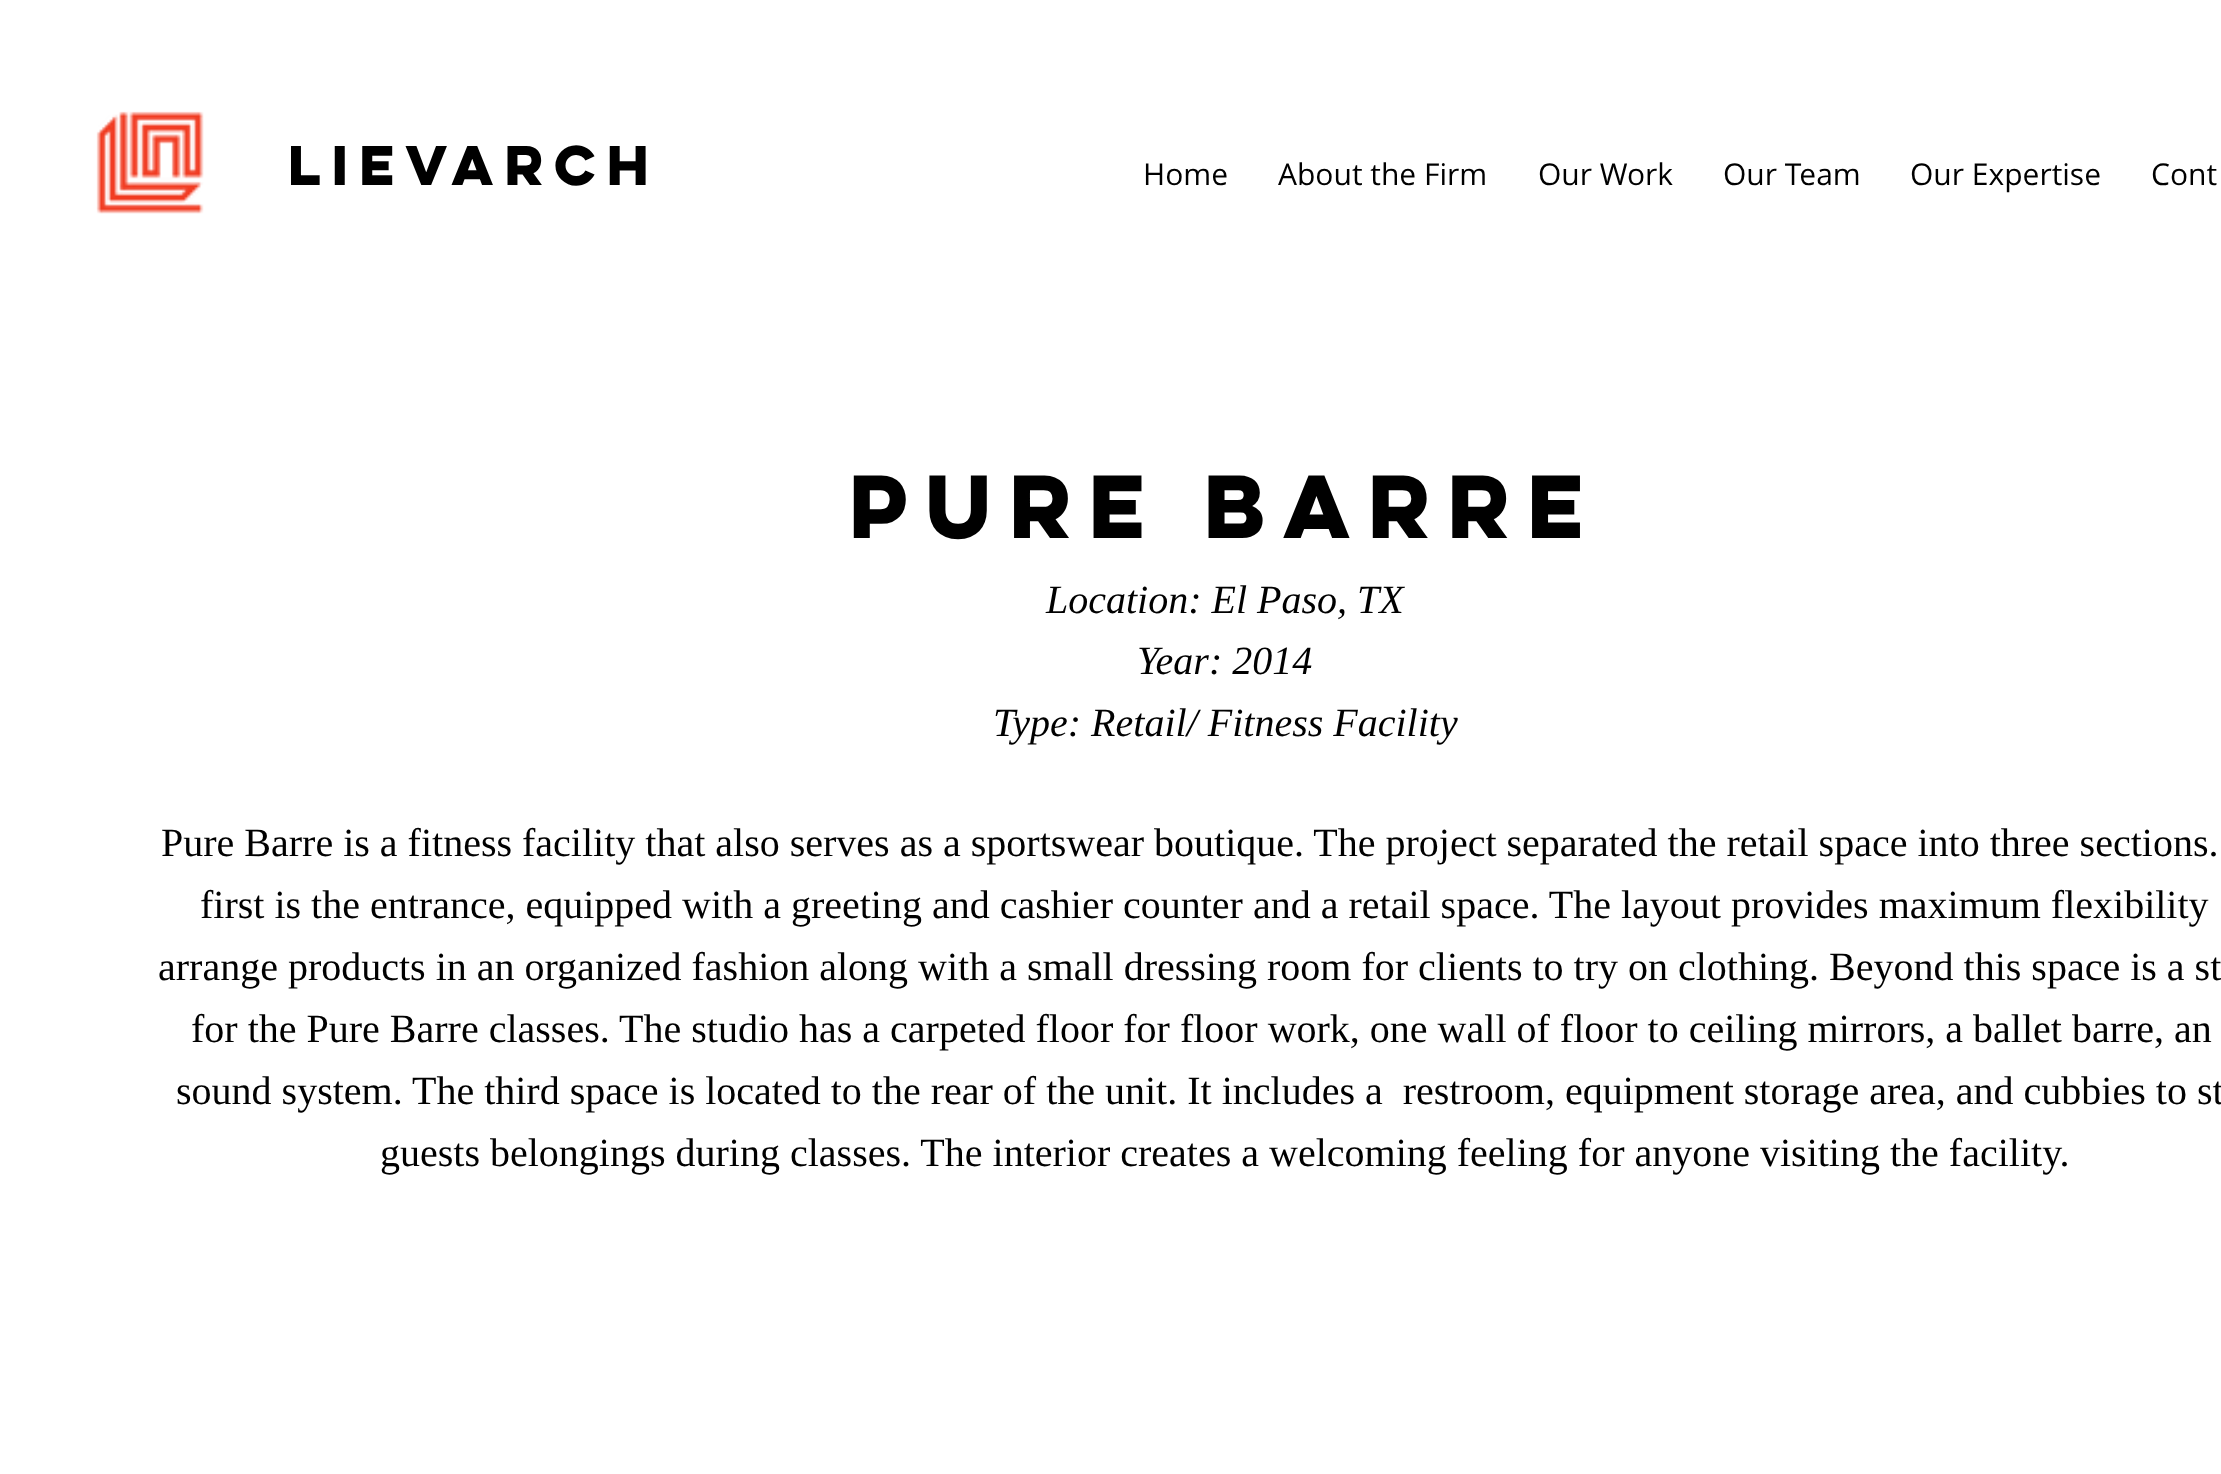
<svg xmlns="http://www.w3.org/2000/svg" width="2221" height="1474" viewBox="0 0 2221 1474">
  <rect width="100%" height="100%" fill="rgb(255,255,255)"/>
  <image x="96" y="111" width="108" height="103" href="pic1.png"/>
  <text x="288" y="185" font-family="'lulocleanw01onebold'" font-size="50" font-weight="bold" fill="rgb(0,0,0)">LIEVARCH</text>
  <g font-family="Open Sans" font-size="30" fill="rgb(0,0,0)">
    <text x="1143" y="185">Home</text>
    <text x="1278" y="185">About the Firm</text>
    <text x="1538" y="185">Our Work</text>
    <text x="1723" y="185">Our Team</text>
    <text x="1910" y="185">Our Expertise</text>
    <text x="2151" y="185">Cont</text>
  </g>
  <text x="849" y="538" font-family="'lulocleanw01onebold'" font-size="80" font-weight="bold" fill="rgb(0,0,0)">Pure Barre</text>
  <g font-family="Liberation Serif" font-size="40" font-style="italic" fill="rgb(0,0,0)">
    <text x="1046" y="613">Location: El Paso, TX</text>
    <text x="1137" y="674">Year: 2014</text>
    <text x="993" y="736">Type: Retail/ Fitness Facility</text>
  </g>
  <g font-family="Liberation Serif" font-size="40" fill="rgb(0,0,0)">
    <text x="161" y="856">Pure Barre is a fitness facility that also serves as a sportswear boutique. The project separated the retail space into three sections.</text>
    <text x="200" y="918">first is the entrance, equipped with a greeting and cashier counter and a retail space. The layout provides maximum flexibility</text>
    <text x="158" y="980">arrange products in an organized fashion along with a small dressing room for clients to try on clothing. Beyond this space is a st</text>
    <text x="191" y="1042">for the Pure Barre classes. The studio has a carpeted floor for floor work, one wall of floor to ceiling mirrors, a ballet barre, an</text>
    <text x="176" y="1104" xml:space="preserve">sound system. The third space is located to the rear of the unit. It includes a  restroom, equipment storage area, and cubbies to st</text>
    <text x="380" y="1166">guests belongings during classes. The interior creates a welcoming feeling for anyone visiting the facility.</text>
  </g>
</svg>
